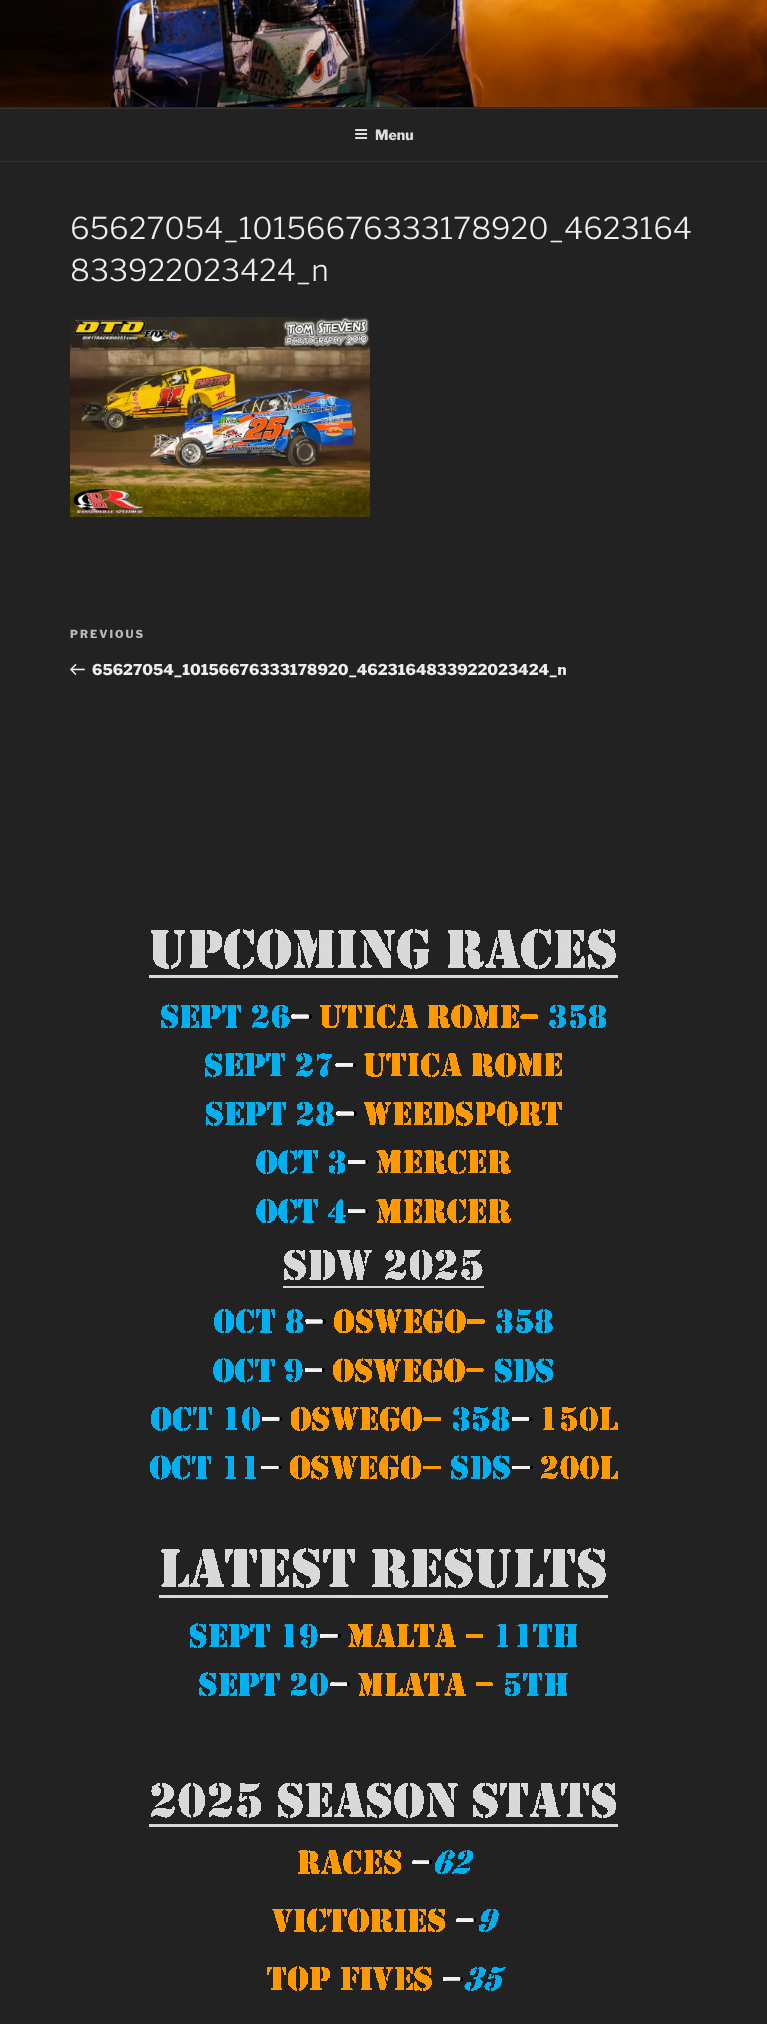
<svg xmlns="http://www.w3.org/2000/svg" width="767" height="2024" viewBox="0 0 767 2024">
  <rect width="100%" height="100%" fill="rgb(34,34,34)"/>
  <rect x="0" y="107" width="767" height="1" fill="rgb(38,38,38)"/>
  <image x="0" y="0" width="767" height="107" href="pic1.png"/>
  <rect x="0" y="108" width="767" height="1" fill="rgb(51,51,51)"/>
  <rect x="0" y="161" width="767" height="1" fill="rgb(51,51,51)"/>
  <image x="355" y="129" width="13" height="10" href="pic2.png"/>
  <text x="375" y="140" font-family="Libre Franklin" font-size="14" font-weight="800" fill="rgb(221,221,221)">Menu</text>
  <g font-family="Libre Franklin" font-size="30" font-weight="300" fill="rgb(238,238,238)">
    <text>
      <tspan x="70" y="239">65627054_10156676333178920_4623164</tspan>
      <tspan x="70" y="281">833922023424_n</tspan>
    </text>
  </g>
  <image x="70" y="317" width="300" height="200" href="pic3.png"/>
  <text x="70" y="638" font-family="Libre Franklin" font-size="11" font-weight="800" letter-spacing="2" fill="rgb(187,187,187)">PREVIOUS</text>
  <image x="70" y="664" width="15" height="11" href="pic4.png"/>
  <text x="92" y="675" font-family="Libre Franklin" font-size="15" font-weight="800" fill="rgb(238,238,238)">65627054_10156676333178920_4623164833922023424_n</text>
  <image x="149" y="929" width="469" height="1062" href="pic5.png"/>
</svg>
